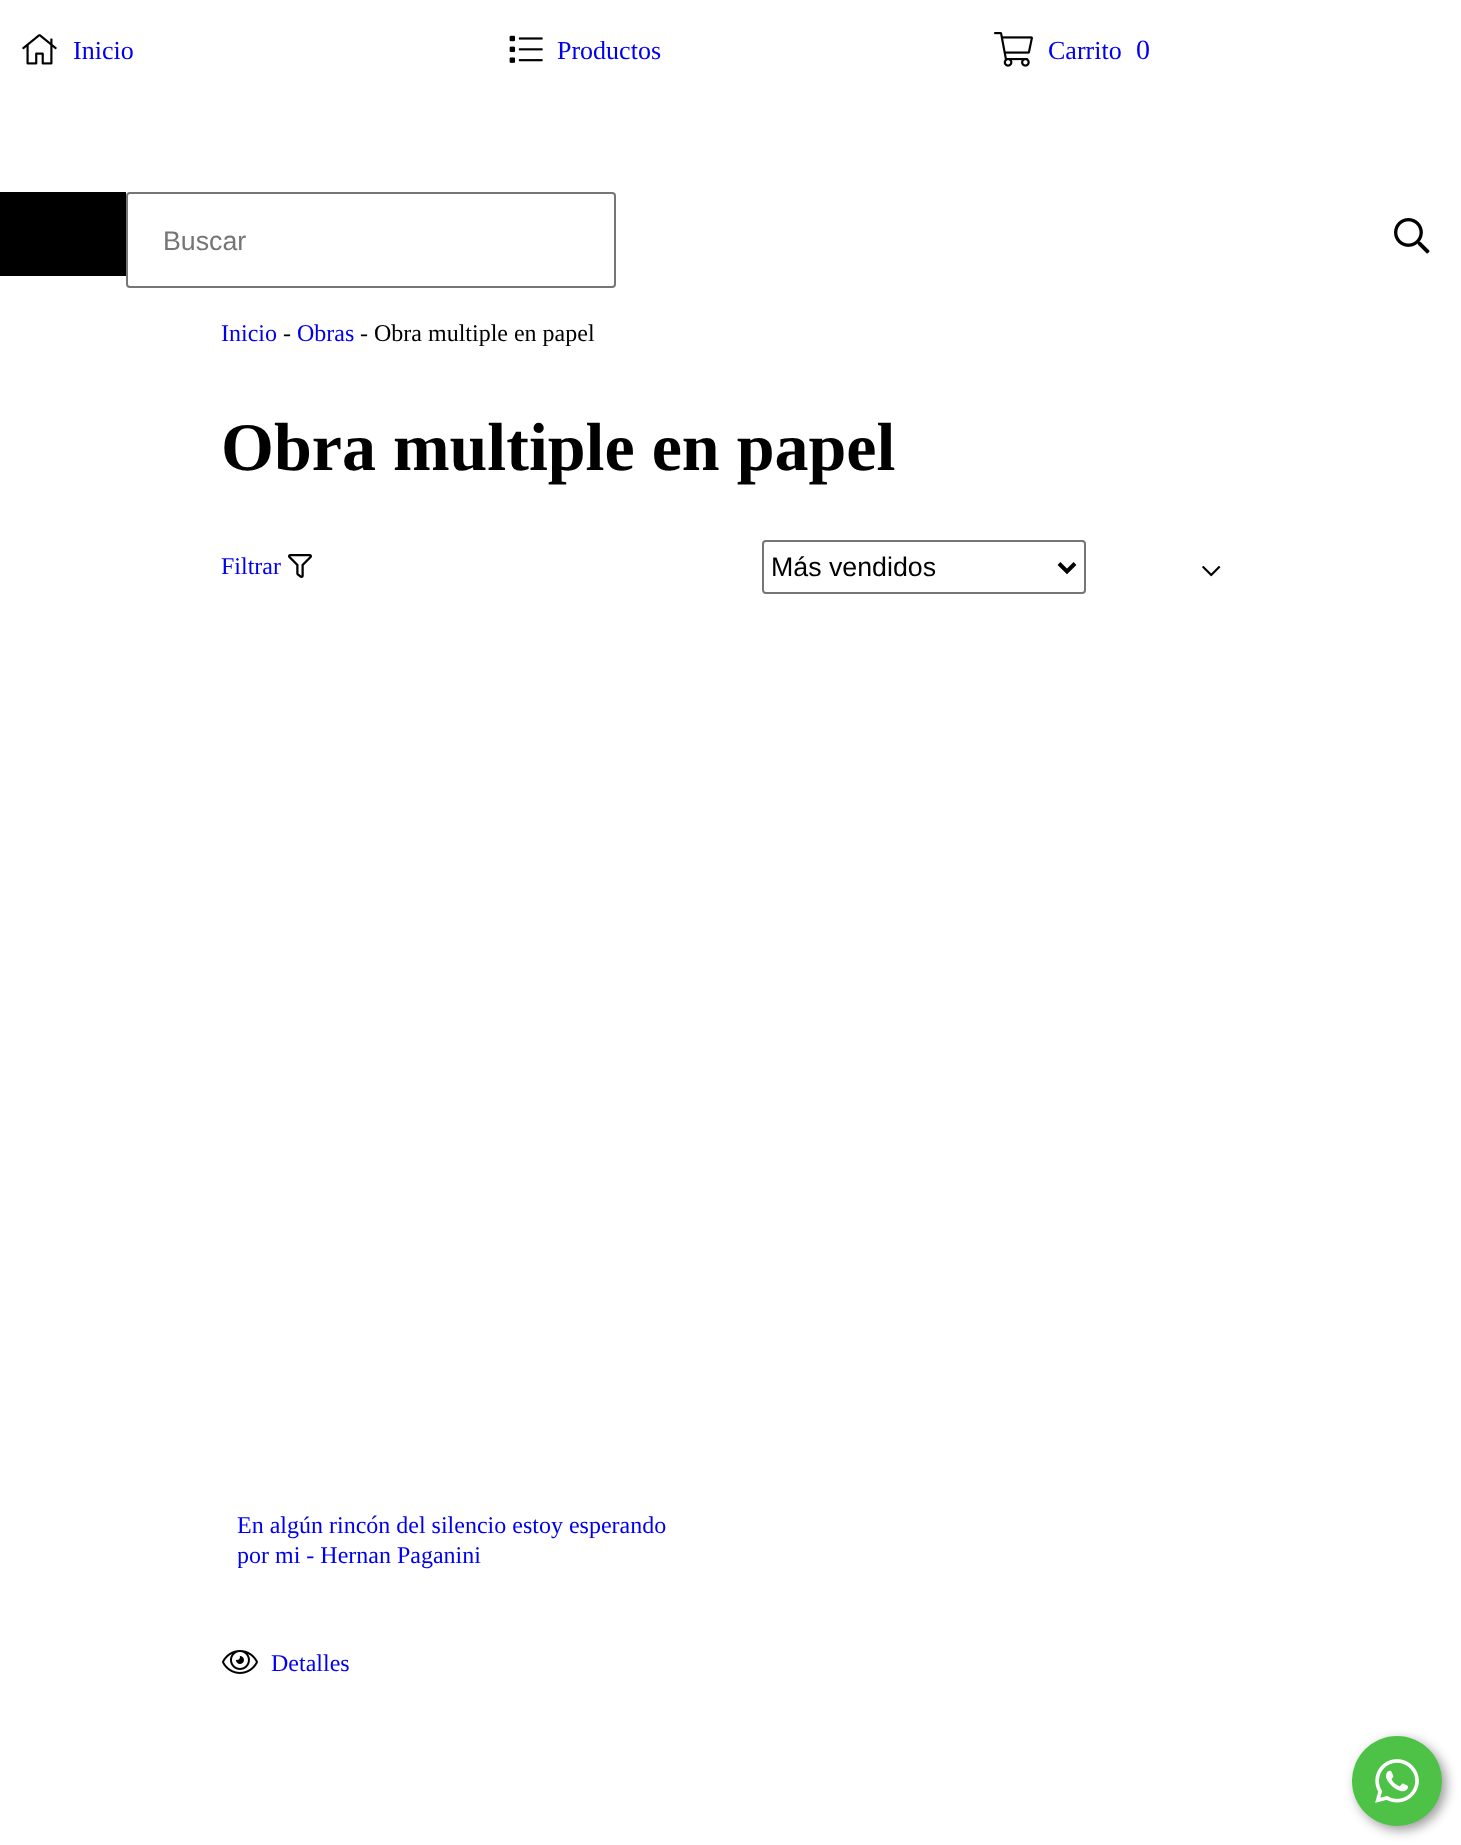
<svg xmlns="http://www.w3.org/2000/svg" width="1461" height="1845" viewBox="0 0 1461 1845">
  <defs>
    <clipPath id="clip1"><rect x="238" y="1512" width="448" height="60"/></clipPath>
  </defs>
  <rect width="100%" height="100%" fill="rgb(255,255,255)"/>
  <image x="22" y="34" width="35" height="31" href="pic1.png"/>
  <text x="73" y="59" font-family="Liberation Serif" font-size="26" fill="rgb(0,0,238)">Inicio</text>
  <image x="509" y="35" width="34" height="28" href="pic2.png"/>
  <text x="557" y="59" font-family="Liberation Serif" font-size="26" fill="rgb(0,0,238)">Productos</text>
  <image x="994" y="32" width="39" height="35" href="pic3.png"/>
  <text x="1048" y="59" font-family="Liberation Serif" font-size="26" fill="rgb(0,0,238)">Carrito</text>
  <text x="1136" y="59" font-family="Liberation Serif" font-size="28" fill="rgb(0,0,238)">0</text>
  <rect x="0" y="192" width="126" height="84" fill="rgb(0,0,0)"/>
  <rect x="127" y="193" width="488" height="94" rx="3" fill="none" stroke="rgb(118,118,118)" stroke-width="2"/>
  <text x="163" y="250" font-family="Liberation Sans" font-size="26.75" fill="rgb(117,117,117)">Buscar</text>
  <image x="1394" y="218" width="36" height="36" href="pic4.png"/>
  <text x="221" y="341" font-family="Liberation Serif" font-size="24" fill="rgb(0,0,238)">Inicio</text>
  <text x="283" y="341" font-family="Liberation Serif" font-size="24" fill="rgb(0,0,0)">-</text>
  <text x="297" y="341" font-family="Liberation Serif" font-size="24" fill="rgb(0,0,238)">Obras</text>
  <text x="360" y="341" font-family="Liberation Serif" font-size="24" fill="rgb(0,0,0)">- Obra multiple en papel</text>
  <text x="221" y="470" font-family="Liberation Serif" font-size="68" font-weight="bold" fill="rgb(0,0,0)">Obra multiple en papel</text>
  <text x="221" y="574" font-family="Liberation Serif" font-size="24" fill="rgb(0,0,238)">Filtrar</text>
  <image x="288" y="554" width="24" height="24" href="pic5.png"/>
  <rect x="763" y="541" width="322" height="52" rx="3" fill="none" stroke="rgb(118,118,118)" stroke-width="2"/>
  <path d="M1059 563.5L1067 571.5L1075 563.5" fill="none" stroke="rgb(0,0,0)" stroke-width="4"/>
  <text x="771" y="576" font-family="Liberation Sans" font-size="26.75" fill="rgb(0,0,0)">Más vendidos</text>
  <image x="1202" y="566" width="19" height="11" href="pic6.png"/>
  <text x="237" y="1533" font-family="Liberation Serif" font-size="24" fill="rgb(0,0,238)">En algún rincón del silencio estoy esperando</text>
  <g clip-path="url(#clip1)">
    <text x="237" y="1563" font-family="Liberation Serif" font-size="24" fill="rgb(0,0,238)">por mi - Hernan Paganini</text>
  </g>
  <image x="222" y="1650" width="36" height="24" href="pic7.png"/>
  <text x="271" y="1671" font-family="Liberation Serif" font-size="24" fill="rgb(0,0,238)">Detalles</text>
  <rect x="1356" y="1740" width="90" height="90" rx="45" fill="rgba(0,0,0,0.4)" filter="blur(6px)"/>
  <circle cx="1397" cy="1781" r="45" fill="rgb(77,194,71)"/>
  <image x="1375" y="1759" width="44" height="44" href="pic8.png"/>
</svg>
